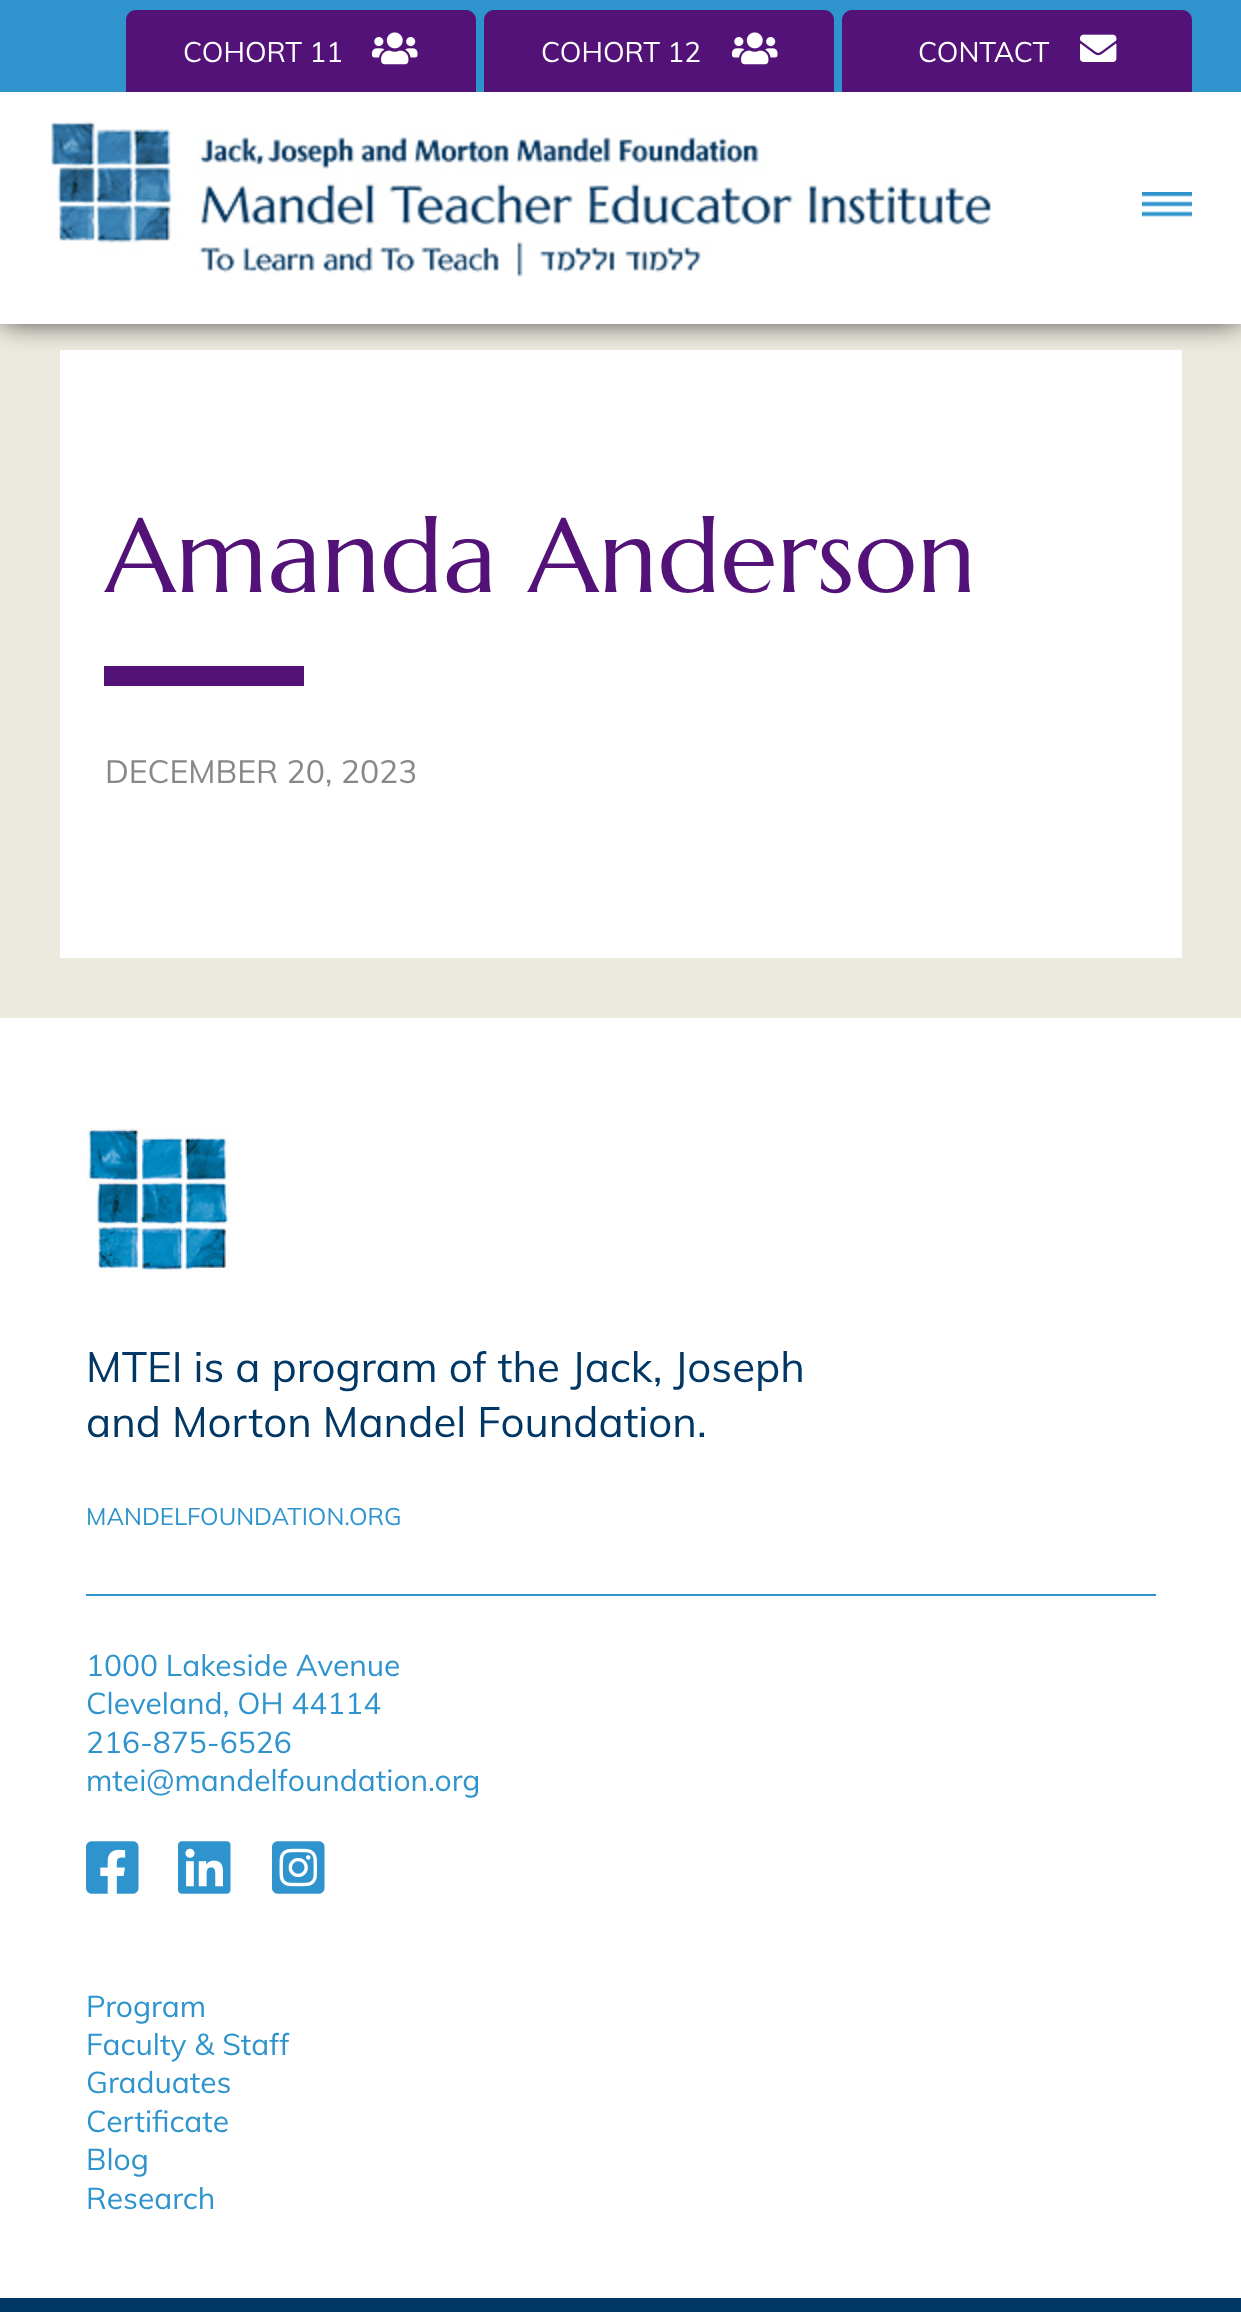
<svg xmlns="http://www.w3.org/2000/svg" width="1241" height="2312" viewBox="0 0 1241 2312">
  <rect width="100%" height="100%" fill="rgb(236,233,223)"/>
  <rect x="60" y="350" width="1122" height="608" fill="rgb(255,255,255)"/>
  <rect x="2" y="2" width="1238" height="320" fill="rgba(0,0,0,0.75)" filter="blur(14px)"/>
  <rect x="0" y="92" width="1241" height="232" fill="rgb(255,255,255)"/>
  <rect x="0" y="0" width="1241" height="92" fill="rgb(47,148,205)"/>
  <path d="M136 10H466C471.5 10 476 14.5 476 20V92H126V20C126 14.5 130.5 10 136 10Z" fill="rgb(83,18,119)"/>
  <text x="183" y="62" font-family="Muli" font-size="28" fill="rgb(255,255,255)">COHORT 11</text>
  <image x="372" y="32" width="46" height="33" href="pic1.png"/>
  <path d="M494 10H824C829.5 10 834 14.5 834 20V92H484V20C484 14.5 488.5 10 494 10Z" fill="rgb(83,18,119)"/>
  <text x="541" y="62" font-family="Muli" font-size="28" fill="rgb(255,255,255)">COHORT 12</text>
  <image x="732" y="32" width="46" height="33" href="pic1.png"/>
  <path d="M852 10H1182C1187.5 10 1192 14.5 1192 20V92H842V20C842 14.5 846.5 10 852 10Z" fill="rgb(83,18,119)"/>
  <text x="918" y="62" font-family="Muli" font-size="28" fill="rgb(255,255,255)">CONTACT</text>
  <image x="1080" y="34" width="37" height="28" href="pic2.png"/>
  <image x="51" y="121" width="940" height="156" href="pic3.png"/>
  <image x="1142" y="192" width="50" height="25" href="pic4.png"/>
  <text x="105" y="592" font-family="Marcellus" font-size="104" fill="rgb(83,18,119)">Amanda Anderson</text>
  <rect x="104" y="666" width="200" height="20" fill="rgb(83,18,119)"/>
  <text x="105" y="783" font-family="Muli" font-size="32" fill="rgb(136,136,136)">DECEMBER 20, 2023</text>
  <rect x="0" y="1018" width="1241" height="1280" fill="rgb(255,255,255)"/>
  <rect x="0" y="2298" width="1241" height="14" fill="rgb(0,55,100)"/>
  <image x="86" y="1128" width="144" height="144" href="pic5.png"/>
  <rect x="86" y="1594" width="1070" height="2" fill="rgb(47,148,205)"/>
  <g font-family="Muli" font-size="42" fill="rgb(0,55,100)">
    <text>
      <tspan x="86" y="1382">MTEI is a program of the Jack, Joseph</tspan>
      <tspan x="86" y="1437">and Morton Mandel Foundation.</tspan>
    </text>
  </g>
  <text x="86" y="1525" font-family="Muli" font-size="24" fill="rgb(47,148,205)">MANDELFOUNDATION.ORG</text>
  <g font-family="Muli" font-size="30" fill="rgb(47,148,205)">
    <text>
      <tspan x="86" y="1676">1000 Lakeside Avenue</tspan>
      <tspan x="86" y="1714">Cleveland, OH 44114</tspan>
      <tspan x="86" y="1753">216-875-6526</tspan>
      <tspan x="86" y="1791">mtei@mandelfoundation.org</tspan>
    </text>
  </g>
  <image x="86" y="1841" width="53" height="53" href="pic6.png"/>
  <image x="178" y="1841" width="53" height="53" href="pic7.png"/>
  <image x="272" y="1841" width="53" height="53" href="pic8.png"/>
  <g font-family="Muli" font-size="30" fill="rgb(47,148,205)">
    <text>
      <tspan x="86" y="2017">Program</tspan>
      <tspan x="86" y="2055">Faculty &amp; Staff</tspan>
      <tspan x="86" y="2093">Graduates</tspan>
      <tspan x="86" y="2132">Certificate</tspan>
      <tspan x="86" y="2170">Blog</tspan>
      <tspan x="86" y="2209">Research</tspan>
    </text>
  </g>
</svg>
